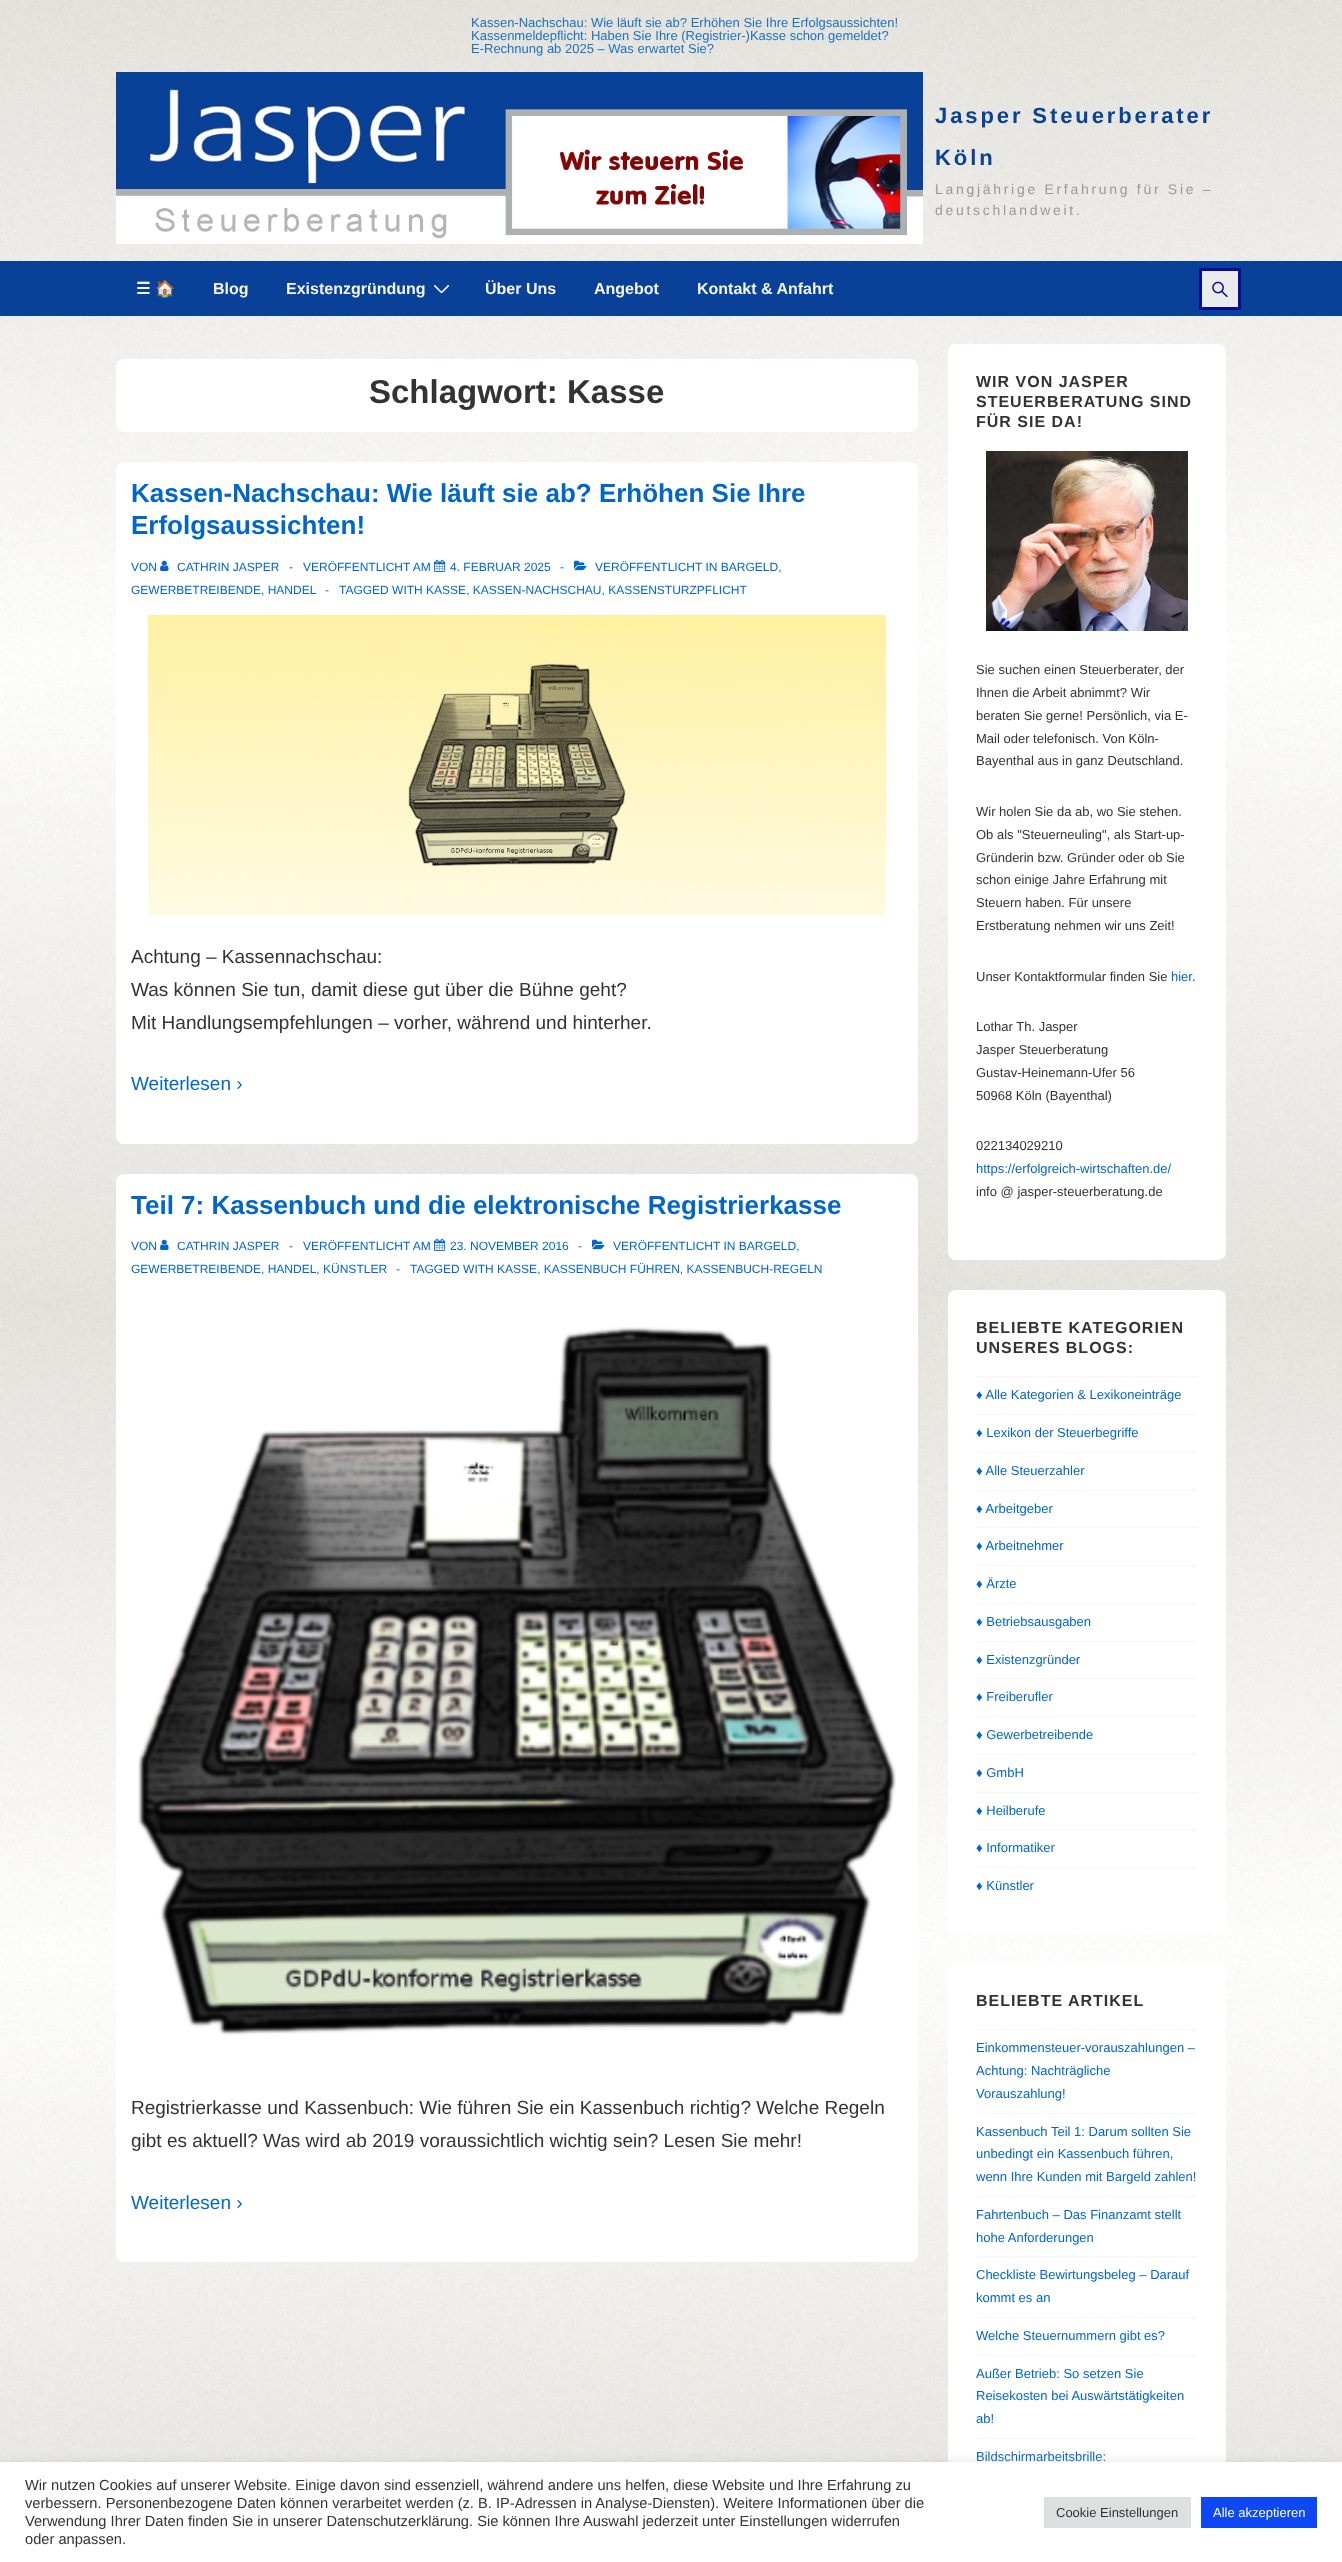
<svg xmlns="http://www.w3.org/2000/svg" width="1342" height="2562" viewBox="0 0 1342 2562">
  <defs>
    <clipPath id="clip1"><rect x="434" y="285" width="15" height="8"/></clipPath>
  </defs>
  <rect width="100%" height="100%" fill="rgb(255,255,255)"/>
  <image x="0" y="0" width="1342" height="2462" href="pic1.png"/>
  <g font-family="Liberation Sans" font-size="13" fill="rgb(30,115,190)">
    <text>
      <tspan x="471" y="27">Kassen-Nachschau: Wie läuft sie ab? Erhöhen Sie Ihre Erfolgsaussichten!</tspan>
      <tspan x="471" y="40">Kassenmeldepflicht: Haben Sie Ihre (Registrier-)Kasse schon gemeldet?</tspan>
      <tspan x="471" y="53">E-Rechnung ab 2025 – Was erwartet Sie?</tspan>
    </text>
  </g>
  <image x="116" y="72" width="807" height="172" href="pic2.png"/>
  <g font-family="Liberation Sans" font-size="22" font-weight="bold" letter-spacing="2.9" fill="rgb(9,65,152)">
    <text>
      <tspan x="935" y="123">Jasper Steuerberater</tspan>
      <tspan x="935" y="165">Köln</tspan>
    </text>
  </g>
  <g font-family="Liberation Sans" font-size="14" letter-spacing="2.7" fill="rgb(153,153,153)">
    <text>
      <tspan x="935" y="194">Langjährige Erfahrung für Sie –</tspan>
      <tspan x="935" y="215">deutschlandweit.</tspan>
    </text>
  </g>
  <rect x="0" y="261" width="1342" height="55" fill="rgb(9,65,152)"/>
  <text x="136" y="294" font-family="DejaVu Sans" font-size="16" font-weight="bold" fill="rgb(245,245,245)">☰</text>
  <text x="155" y="294" font-family="Noto Color Emoji" font-size="16" font-weight="bold" fill="rgb(245,245,245)">🏠</text>
  <g font-family="Liberation Sans" font-size="16" font-weight="bold" fill="rgb(245,245,245)">
    <text x="213" y="294">Blog</text>
    <text x="286" y="294">Existenzgründung</text>
  </g>
  <g clip-path="url(#clip1)">
    <path d="M434.5 285.5L441.5 292.5L448.5 285.5" fill="none" stroke="rgb(245,245,245)" stroke-width="1.6" stroke-linecap="round"/>
  </g>
  <g font-family="Liberation Sans" font-size="16" font-weight="bold" fill="rgb(245,245,245)">
    <text x="485" y="294">Über Uns</text>
    <text x="594" y="294">Angebot</text>
    <text x="697" y="294">Kontakt &amp; Anfahrt</text>
  </g>
  <rect x="1200.5" y="269.5" width="39" height="39" fill="rgb(235,235,235)" stroke="rgb(10,12,148)" stroke-width="3"/>
  <image x="1212" y="281" width="16" height="16" href="pic3.png"/>
  <rect x="116" y="359" width="802" height="73" rx="8" fill="rgb(255,255,255)"/>
  <text x="369" y="403" font-family="Liberation Sans" font-size="33" font-weight="bold" fill="rgb(51,51,51)">Schlagwort: Kasse</text>
  <rect x="116" y="462" width="802" height="682" rx="8" fill="rgb(255,255,255)"/>
  <g font-family="Liberation Sans" font-size="26" font-weight="bold" fill="rgb(0,102,204)">
    <text>
      <tspan x="131" y="502">Kassen-Nachschau: Wie läuft sie ab? Erhöhen Sie Ihre</tspan>
      <tspan x="131" y="534">Erfolgsaussichten!</tspan>
    </text>
  </g>
  <text x="131" y="571" font-family="Liberation Sans" font-size="12" fill="rgb(0,102,204)">VON</text>
  <image x="160" y="560" width="9" height="11" href="pic4.png"/>
  <g font-family="Liberation Sans" font-size="12" fill="rgb(0,102,204)">
    <text x="177" y="571">CATHRIN JASPER</text>
    <text x="289" y="571">-</text>
    <text x="303" y="571">VERÖFFENTLICHT AM</text>
  </g>
  <image x="434" y="559" width="12" height="13" href="pic5.png"/>
  <g font-family="Liberation Sans" font-size="12" fill="rgb(0,102,204)">
    <text x="450" y="571">4. FEBRUAR 2025</text>
    <text x="560" y="571">-</text>
  </g>
  <image x="574" y="560" width="13" height="11" href="pic6.png"/>
  <g font-family="Liberation Sans" font-size="12" fill="rgb(0,102,204)">
    <text x="595" y="571">VERÖFFENTLICHT IN BARGELD,</text>
    <text x="131" y="594">GEWERBETREIBENDE, HANDEL</text>
    <text x="325" y="594">-</text>
    <text x="339" y="594">TAGGED WITH KASSE, KASSEN-NACHSCHAU, KASSENSTURZPFLICHT</text>
  </g>
  <image x="148" y="615" width="738" height="300" href="pic7.png"/>
  <g font-family="Liberation Sans" font-size="19" fill="rgb(51,51,51)">
    <text>
      <tspan x="131" y="963">Achtung – Kassennachschau:</tspan>
      <tspan x="131" y="996">Was können Sie tun, damit diese gut über die Bühne geht?</tspan>
      <tspan x="131" y="1029">Mit Handlungsempfehlungen – vorher, während und hinterher.</tspan>
    </text>
  </g>
  <text x="131" y="1090" font-family="Liberation Sans" font-size="19" fill="rgb(0,102,204)">Weiterlesen ›</text>
  <rect x="116" y="1174" width="802" height="1088" rx="8" fill="rgb(255,255,255)"/>
  <text x="131" y="1214" font-family="Liberation Sans" font-size="26" font-weight="bold" fill="rgb(0,102,204)">Teil 7: Kassenbuch und die elektronische Registrierkasse</text>
  <text x="131" y="1250" font-family="Liberation Sans" font-size="12" fill="rgb(0,102,204)">VON</text>
  <image x="160" y="1239" width="9" height="11" href="pic4.png"/>
  <g font-family="Liberation Sans" font-size="12" fill="rgb(0,102,204)">
    <text x="177" y="1250">CATHRIN JASPER</text>
    <text x="289" y="1250">-</text>
    <text x="303" y="1250">VERÖFFENTLICHT AM</text>
  </g>
  <image x="434" y="1238" width="12" height="13" href="pic5.png"/>
  <g font-family="Liberation Sans" font-size="12" fill="rgb(0,102,204)">
    <text x="450" y="1250">23. NOVEMBER 2016</text>
    <text x="578" y="1250">-</text>
  </g>
  <image x="592" y="1239" width="13" height="11" href="pic6.png"/>
  <g font-family="Liberation Sans" font-size="12" fill="rgb(0,102,204)">
    <text x="613" y="1250">VERÖFFENTLICHT IN BARGELD,</text>
    <text x="131" y="1273">GEWERBETREIBENDE, HANDEL, KÜNSTLER</text>
    <text x="396" y="1273">-</text>
    <text x="410" y="1273">TAGGED WITH KASSE, KASSENBUCH FÜHREN, KASSENBUCH-REGELN</text>
  </g>
  <image x="138" y="1327" width="758" height="708" href="pic8.png"/>
  <g font-family="Liberation Sans" font-size="19" fill="rgb(51,51,51)">
    <text>
      <tspan x="131" y="2114">Registrierkasse und Kassenbuch: Wie führen Sie ein Kassenbuch richtig? Welche Regeln</tspan>
      <tspan x="131" y="2147">gibt es aktuell? Was wird ab 2019 voraussichtlich wichtig sein? Lesen Sie mehr!</tspan>
    </text>
  </g>
  <text x="131" y="2209" font-family="Liberation Sans" font-size="19" fill="rgb(0,102,204)">Weiterlesen ›</text>
  <rect x="948" y="344" width="278" height="916" rx="8" fill="rgb(255,255,255)"/>
  <g font-family="Liberation Sans" font-size="16" font-weight="bold" letter-spacing="1" fill="rgb(51,51,51)">
    <text>
      <tspan x="976" y="387">WIR VON JASPER</tspan>
      <tspan x="976" y="407">STEUERBERATUNG SIND</tspan>
      <tspan x="976" y="427">FÜR SIE DA!</tspan>
    </text>
  </g>
  <image x="986" y="451" width="202" height="180" href="pic9.png"/>
  <g font-family="Liberation Sans" font-size="13" fill="rgb(51,51,51)">
    <text>
      <tspan x="976" y="674">Sie suchen einen Steuerberater, der</tspan>
      <tspan x="976" y="697">Ihnen die Arbeit abnimmt? Wir</tspan>
      <tspan x="976" y="720">beraten Sie gerne! Persönlich, via E-</tspan>
      <tspan x="976" y="743">Mail oder telefonisch. Von Köln-</tspan>
      <tspan x="976" y="765">Bayenthal aus in ganz Deutschland.</tspan>
    </text>
    <text>
      <tspan x="976" y="816">Wir holen Sie da ab, wo Sie stehen.</tspan>
      <tspan x="976" y="839">Ob als "Steuerneuling", als Start-up-</tspan>
      <tspan x="976" y="862">Gründerin bzw. Gründer oder ob Sie</tspan>
      <tspan x="976" y="884">schon einige Jahre Erfahrung mit</tspan>
      <tspan x="976" y="907">Steuern haben. Für unsere</tspan>
      <tspan x="976" y="930">Erstberatung nehmen wir uns Zeit!</tspan>
    </text>
    <text x="976" y="981">Unser Kontaktformular finden Sie</text>
  </g>
  <text x="1171" y="981" font-family="Liberation Sans" font-size="13" fill="rgb(0,102,204)">hier</text>
  <g font-family="Liberation Sans" font-size="13" fill="rgb(51,51,51)">
    <text x="1192" y="981">.</text>
    <text>
      <tspan x="976" y="1031">Lothar Th. Jasper</tspan>
      <tspan x="976" y="1054">Jasper Steuerberatung</tspan>
      <tspan x="976" y="1077">Gustav-Heinemann-Ufer 56</tspan>
      <tspan x="976" y="1100">50968 Köln (Bayenthal)</tspan>
    </text>
    <text x="976" y="1150">022134029210</text>
  </g>
  <text x="976" y="1173" font-family="Liberation Sans" font-size="13" fill="rgb(0,102,204)">https://erfolgreich-wirtschaften.de/</text>
  <text x="976" y="1196" font-family="Liberation Sans" font-size="13" fill="rgb(51,51,51)">info @ jasper-steuerberatung.de</text>
  <rect x="948" y="1290" width="278" height="643" rx="8" fill="rgb(255,255,255)"/>
  <g font-family="Liberation Sans" font-size="16" font-weight="bold" letter-spacing="1" fill="rgb(51,51,51)">
    <text>
      <tspan x="976" y="1333">BELIEBTE KATEGORIEN</tspan>
      <tspan x="976" y="1353">UNSERES BLOGS:</tspan>
    </text>
  </g>
  <path d="M976 1376.5H1198" fill="none" stroke="rgb(238,238,238)" stroke-dasharray="1 1"/>
  <text x="976" y="1399" font-family="Liberation Sans" font-size="13" fill="rgb(0,102,204)">♦ Alle Kategorien &amp; Lexikoneinträge</text>
  <path d="M976 1414.5H1198" fill="none" stroke="rgb(238,238,238)" stroke-dasharray="1 1"/>
  <text x="976" y="1437" font-family="Liberation Sans" font-size="13" fill="rgb(0,102,204)">♦ Lexikon der Steuerbegriffe</text>
  <path d="M976 1452.5H1198" fill="none" stroke="rgb(238,238,238)" stroke-dasharray="1 1"/>
  <text x="976" y="1475" font-family="Liberation Sans" font-size="13" fill="rgb(0,102,204)">♦ Alle Steuerzahler</text>
  <path d="M976 1490.5H1198" fill="none" stroke="rgb(238,238,238)" stroke-dasharray="1 1"/>
  <text x="976" y="1513" font-family="Liberation Sans" font-size="13" fill="rgb(0,102,204)">♦ Arbeitgeber</text>
  <path d="M976 1527.5H1198" fill="none" stroke="rgb(238,238,238)" stroke-dasharray="1 1"/>
  <text x="976" y="1550" font-family="Liberation Sans" font-size="13" fill="rgb(0,102,204)">♦ Arbeitnehmer</text>
  <path d="M976 1565.5H1198" fill="none" stroke="rgb(238,238,238)" stroke-dasharray="1 1"/>
  <text x="976" y="1588" font-family="Liberation Sans" font-size="13" fill="rgb(0,102,204)">♦ Ärzte</text>
  <path d="M976 1603.5H1198" fill="none" stroke="rgb(238,238,238)" stroke-dasharray="1 1"/>
  <text x="976" y="1626" font-family="Liberation Sans" font-size="13" fill="rgb(0,102,204)">♦ Betriebsausgaben</text>
  <path d="M976 1641.5H1198" fill="none" stroke="rgb(238,238,238)" stroke-dasharray="1 1"/>
  <text x="976" y="1664" font-family="Liberation Sans" font-size="13" fill="rgb(0,102,204)">♦ Existenzgründer</text>
  <path d="M976 1678.5H1198" fill="none" stroke="rgb(238,238,238)" stroke-dasharray="1 1"/>
  <text x="976" y="1701" font-family="Liberation Sans" font-size="13" fill="rgb(0,102,204)">♦ Freiberufler</text>
  <path d="M976 1716.5H1198" fill="none" stroke="rgb(238,238,238)" stroke-dasharray="1 1"/>
  <text x="976" y="1739" font-family="Liberation Sans" font-size="13" fill="rgb(0,102,204)">♦ Gewerbetreibende</text>
  <path d="M976 1754.5H1198" fill="none" stroke="rgb(238,238,238)" stroke-dasharray="1 1"/>
  <text x="976" y="1777" font-family="Liberation Sans" font-size="13" fill="rgb(0,102,204)">♦ GmbH</text>
  <path d="M976 1792.5H1198" fill="none" stroke="rgb(238,238,238)" stroke-dasharray="1 1"/>
  <text x="976" y="1815" font-family="Liberation Sans" font-size="13" fill="rgb(0,102,204)">♦ Heilberufe</text>
  <path d="M976 1829.5H1198" fill="none" stroke="rgb(238,238,238)" stroke-dasharray="1 1"/>
  <text x="976" y="1852" font-family="Liberation Sans" font-size="13" fill="rgb(0,102,204)">♦ Informatiker</text>
  <path d="M976 1867.5H1198" fill="none" stroke="rgb(238,238,238)" stroke-dasharray="1 1"/>
  <text x="976" y="1890" font-family="Liberation Sans" font-size="13" fill="rgb(0,102,204)">♦ Künstler</text>
  <rect x="948" y="1963" width="278" height="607" rx="8" fill="rgb(255,255,255)"/>
  <text x="976" y="2006" font-family="Liberation Sans" font-size="16" font-weight="bold" letter-spacing="1" fill="rgb(51,51,51)">BELIEBTE ARTIKEL</text>
  <path d="M976 2029.5H1198" fill="none" stroke="rgb(238,238,238)" stroke-dasharray="1 1"/>
  <g font-family="Liberation Sans" font-size="13" fill="rgb(0,102,204)">
    <text>
      <tspan x="976" y="2052">Einkommensteuer-vorauszahlungen –</tspan>
      <tspan x="976" y="2075">Achtung: Nachträgliche</tspan>
      <tspan x="976" y="2098">Vorauszahlung!</tspan>
    </text>
  </g>
  <path d="M976 2113.5H1198" fill="none" stroke="rgb(238,238,238)" stroke-dasharray="1 1"/>
  <g font-family="Liberation Sans" font-size="13" fill="rgb(0,102,204)">
    <text>
      <tspan x="976" y="2136">Kassenbuch Teil 1: Darum sollten Sie</tspan>
      <tspan x="976" y="2158">unbedingt ein Kassenbuch führen,</tspan>
      <tspan x="976" y="2181">wenn Ihre Kunden mit Bargeld zahlen!</tspan>
    </text>
  </g>
  <path d="M976 2196.5H1198" fill="none" stroke="rgb(238,238,238)" stroke-dasharray="1 1"/>
  <g font-family="Liberation Sans" font-size="13" fill="rgb(0,102,204)">
    <text>
      <tspan x="976" y="2219">Fahrtenbuch – Das Finanzamt stellt</tspan>
      <tspan x="976" y="2242">hohe Anforderungen</tspan>
    </text>
  </g>
  <path d="M976 2256.5H1198" fill="none" stroke="rgb(238,238,238)" stroke-dasharray="1 1"/>
  <g font-family="Liberation Sans" font-size="13" fill="rgb(0,102,204)">
    <text>
      <tspan x="976" y="2279">Checkliste Bewirtungsbeleg – Darauf</tspan>
      <tspan x="976" y="2302">kommt es an</tspan>
    </text>
  </g>
  <path d="M976 2317.5H1198" fill="none" stroke="rgb(238,238,238)" stroke-dasharray="1 1"/>
  <text x="976" y="2340" font-family="Liberation Sans" font-size="13" fill="rgb(0,102,204)">Welche Steuernummern gibt es?</text>
  <path d="M976 2355.5H1198" fill="none" stroke="rgb(238,238,238)" stroke-dasharray="1 1"/>
  <g font-family="Liberation Sans" font-size="13" fill="rgb(0,102,204)">
    <text>
      <tspan x="976" y="2378">Außer Betrieb: So setzen Sie</tspan>
      <tspan x="976" y="2400">Reisekosten bei Auswärtstätigkeiten</tspan>
      <tspan x="976" y="2423">ab!</tspan>
    </text>
  </g>
  <path d="M976 2438.5H1198" fill="none" stroke="rgb(238,238,238)" stroke-dasharray="1 1"/>
  <text x="976" y="2461" font-family="Liberation Sans" font-size="13" fill="rgb(0,102,204)">Bildschirmarbeitsbrille:</text>
  <rect x="0" y="2461" width="1342" height="100" fill="rgba(172,171,171,0.3)" filter="blur(5px)"/>
  <rect x="0" y="2462" width="1342" height="100" fill="rgb(255,255,255)"/>
  <g font-family="Liberation Sans" font-size="14.67" fill="rgb(51,51,51)">
    <text>
      <tspan x="25" y="2490">Wir nutzen Cookies auf unserer Website. Einige davon sind essenziell, während andere uns helfen, diese Website und Ihre Erfahrung zu</tspan>
      <tspan x="25" y="2508">verbessern. Personenbezogene Daten können verarbeitet werden (z. B. IP-Adressen in Analyse-Diensten). Weitere Informationen über die</tspan>
      <tspan x="25" y="2526">Verwendung Ihrer Daten finden Sie in unserer Datenschutzerklärung. Sie können Ihre Auswahl jederzeit unter Einstellungen widerrufen</tspan>
      <tspan x="25" y="2544">oder anpassen.</tspan>
    </text>
  </g>
  <rect x="1044" y="2497" width="147" height="31" fill="rgb(222,223,224)"/>
  <text x="1056" y="2517" font-family="Liberation Sans" font-size="13" fill="rgb(51,51,51)">Cookie Einstellungen</text>
  <rect x="1201" y="2497" width="116" height="31" fill="rgb(14,72,244)"/>
  <text x="1213" y="2517" font-family="Liberation Sans" font-size="13" fill="rgb(255,255,255)">Alle akzeptieren</text>
</svg>
